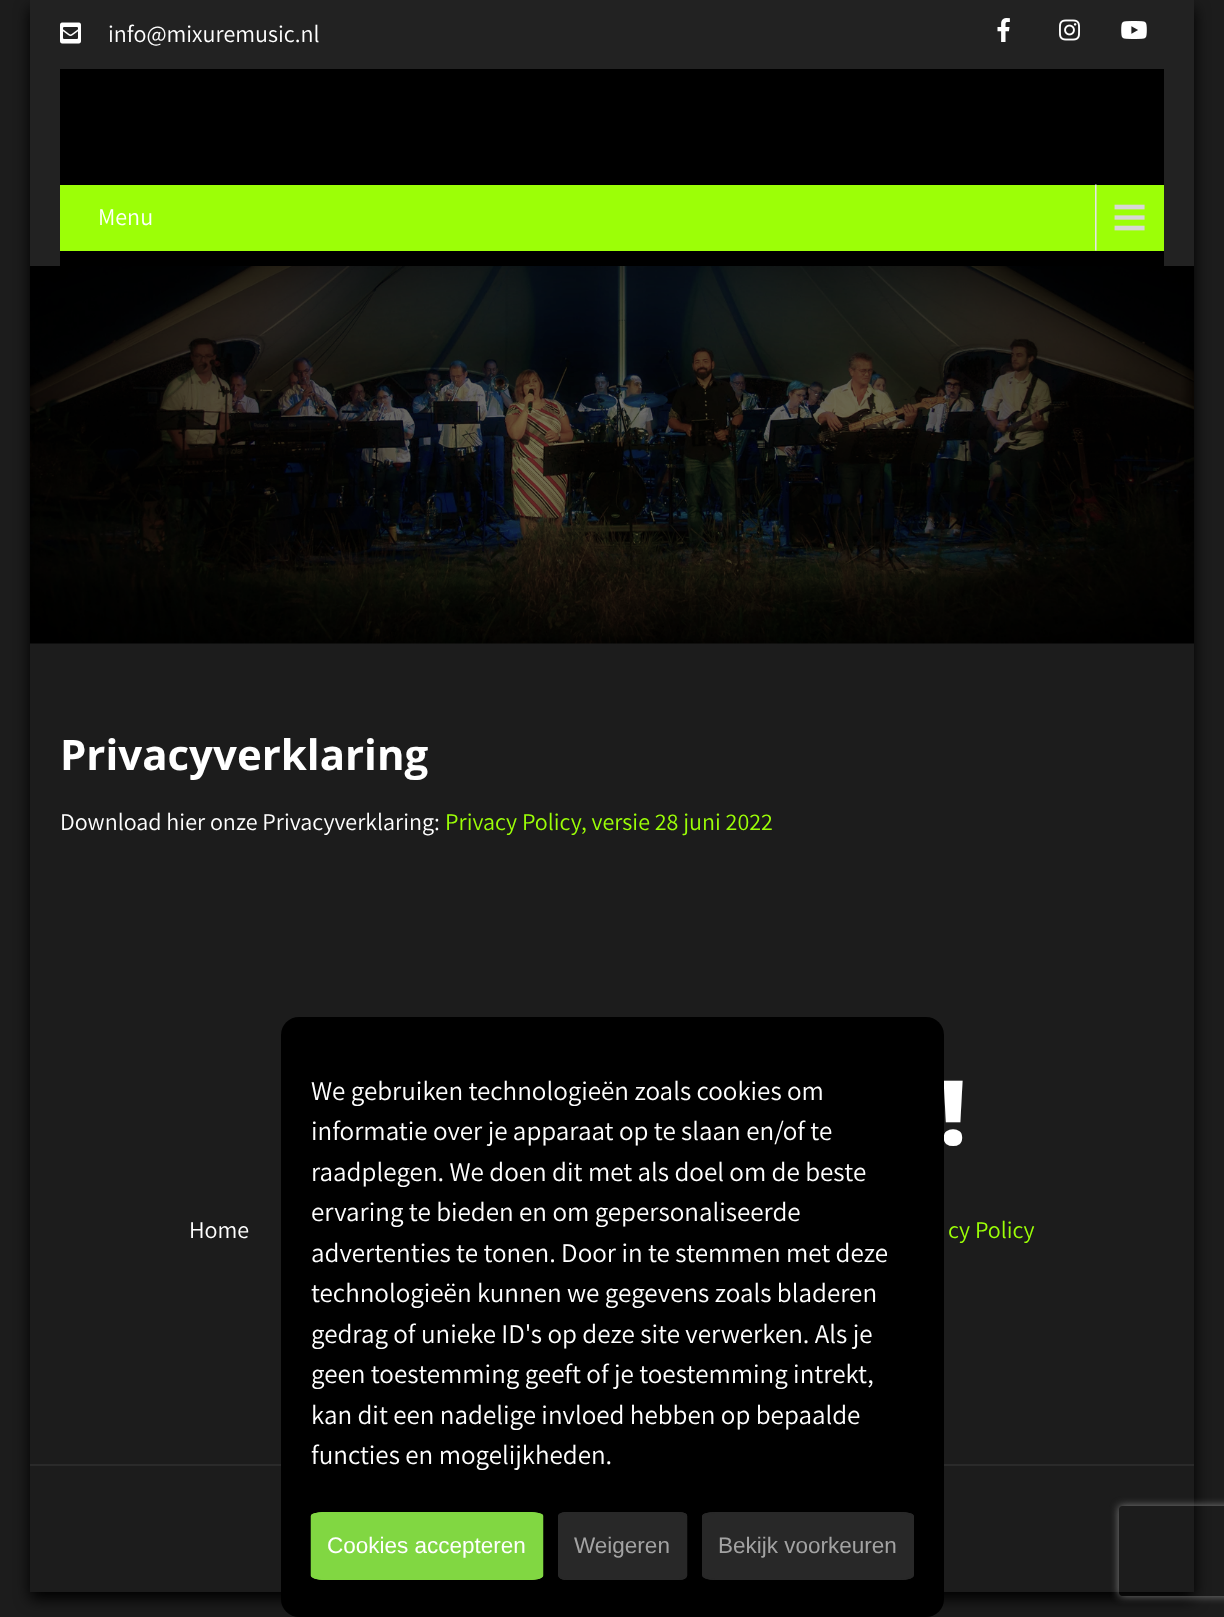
<svg xmlns="http://www.w3.org/2000/svg" width="1224" height="1617" viewBox="0 0 1224 1617">
  <defs>
    <clipPath id="clip1"><path d="M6 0H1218V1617H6ZM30 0H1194V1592H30Z" clip-rule="evenodd"/></clipPath>
    <clipPath id="clip2"><path d="M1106 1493H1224V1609H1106ZM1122 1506H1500C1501.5 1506 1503 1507.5 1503 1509V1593C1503 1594.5 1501.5 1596 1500 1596H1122C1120.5 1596 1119 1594.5 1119 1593V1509C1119 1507.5 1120.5 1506 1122 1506Z" clip-rule="evenodd"/></clipPath>
  </defs>
  <rect width="100%" height="100%" fill="rgb(28,28,28)"/>
  <g clip-path="url(#clip1)">
    <rect x="30" y="8" width="1164" height="1591" fill="rgb(0,0,0)" filter="blur(7.5px)"/>
  </g>
  <rect x="30" y="0" width="1164" height="266" fill="rgb(34,34,34)"/>
  <image x="60" y="22" width="21" height="22" href="pic1.png"/>
  <text x="108" y="42" font-family="Assistant" font-size="24" fill="rgb(255,255,255)">info@mixuremusic.nl</text>
  <image x="997" y="18" width="13" height="24" href="pic2.png"/>
  <image x="1059" y="19" width="21" height="22" href="pic3.png"/>
  <image x="1121" y="21" width="26" height="18" href="pic4.png"/>
  <rect x="60" y="69" width="1104" height="197" fill="rgb(0,0,0)"/>
  <rect x="60" y="185" width="1104" height="66" fill="rgb(156,255,7)"/>
  <image x="1095" y="184" width="50" height="67" href="pic5.png"/>
  <text x="98" y="225" font-family="Assistant" font-size="24" fill="rgb(255,255,255)">Menu</text>
  <image x="30" y="266" width="1164" height="378" href="pic6.png"/>
  <text x="60" y="770" font-family="Open Sans" font-size="42" font-weight="bold" fill="rgb(255,255,255)">Privacyverklaring</text>
  <text x="60" y="830" font-family="Assistant" font-size="24" fill="rgb(255,255,255)">Download hier onze Privacyverklaring:</text>
  <text x="445" y="830" font-family="Assistant" font-size="24" fill="rgb(156,255,7)">Privacy Policy, versie 28 juni 2022</text>
  <text x="940" y="1145" font-family="Open Sans" font-size="90" font-weight="800" fill="rgb(255,255,255)">!</text>
  <text x="189" y="1238" font-family="Assistant" font-size="24" fill="rgb(255,255,255)">Home</text>
  <text x="948" y="1238" font-family="Assistant" font-size="24" fill="rgb(156,255,7)">cy Policy</text>
  <rect x="30" y="1464" width="1164" height="2" fill="rgb(42,42,42)"/>
  <rect x="281" y="1017" width="663" height="600" rx="18" fill="rgb(0,0,0)"/>
  <g font-family="Assistant" font-size="27" fill="rgb(255,255,255)">
    <text>
      <tspan x="311" y="1100">We gebruiken technologieën zoals cookies om</tspan>
      <tspan x="311" y="1140">informatie over je apparaat op te slaan en/of te</tspan>
      <tspan x="311" y="1181">raadplegen. We doen dit met als doel om de beste</tspan>
      <tspan x="311" y="1221">ervaring te bieden en om gepersonaliseerde</tspan>
      <tspan x="311" y="1262">advertenties te tonen. Door in te stemmen met deze</tspan>
      <tspan x="311" y="1302">technologieën kunnen we gegevens zoals bladeren</tspan>
      <tspan x="311" y="1343">gedrag of unieke ID's op deze site verwerken. Als je</tspan>
      <tspan x="311" y="1383">geen toestemming geeft of je toestemming intrekt,</tspan>
      <tspan x="311" y="1424">kan dit een nadelige invloed hebben op bepaalde</tspan>
      <tspan x="311" y="1464">functies en mogelijkheden.</tspan>
    </text>
  </g>
  <path d="M325 1512H529C537 1512 543 1514 543 1516V1575C543 1578 537 1580 529 1580H325C317 1580 311 1578 311 1575V1516C311 1514 317 1512 325 1512Z" fill="rgb(129,215,66)"/>
  <path d="M324.5 1513H529C536.5 1513 542.5 1514 542.5 1516V1575.5C542.5 1577.5 536.5 1579 529 1579H324.5C317.5 1579 311.5 1577.5 311.5 1575.5V1516C311.5 1514 317.5 1513 324.5 1513Z" fill="none" stroke="rgb(129,215,66)" stroke-width="1.5"/>
  <text x="327" y="1553" font-family="Liberation Sans" font-size="22.5" fill="rgb(255,255,255)">Cookies accepteren</text>
  <path d="M566 1512H679C684 1512 687 1514 687 1516V1575C687 1578 684 1580 679 1580H566C562 1580 558 1578 558 1575V1516C558 1514 562 1512 566 1512Z" fill="rgb(40,40,40)"/>
  <path d="M566 1513H679.5C683.5 1513 686.5 1514 686.5 1516V1575.5C686.5 1577.5 683.5 1579 679.5 1579H566C562 1579 559 1577.5 559 1575.5V1516C559 1514 562 1513 566 1513Z" fill="none" stroke="rgb(40,40,40)" stroke-width="1.5"/>
  <text x="574" y="1553" font-family="Liberation Sans" font-size="22.5" fill="rgb(163,163,163)">Weigeren</text>
  <path d="M715 1512H901C908 1512 914 1514 914 1516V1575C914 1578 908 1580 901 1580H715C708 1580 702 1578 702 1575V1516C702 1514 708 1512 715 1512Z" fill="rgb(40,40,40)"/>
  <path d="M715 1513H901C907.5 1513 913 1514 913 1516V1575.5C913 1577.5 907.5 1579 901 1579H715C708.5 1579 703 1577.5 703 1575.5V1516C703 1514 708.5 1513 715 1513Z" fill="none" stroke="rgb(40,40,40)" stroke-width="1.5"/>
  <text x="718" y="1553" font-family="Liberation Sans" font-size="22.5" fill="rgb(163,163,163)">Bekijk voorkeuren</text>
  <g clip-path="url(#clip2)">
    <rect x="1119" y="1506" width="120" height="90" rx="3" fill="rgb(128,128,128)" filter="blur(4px)"/>
  </g>
</svg>
